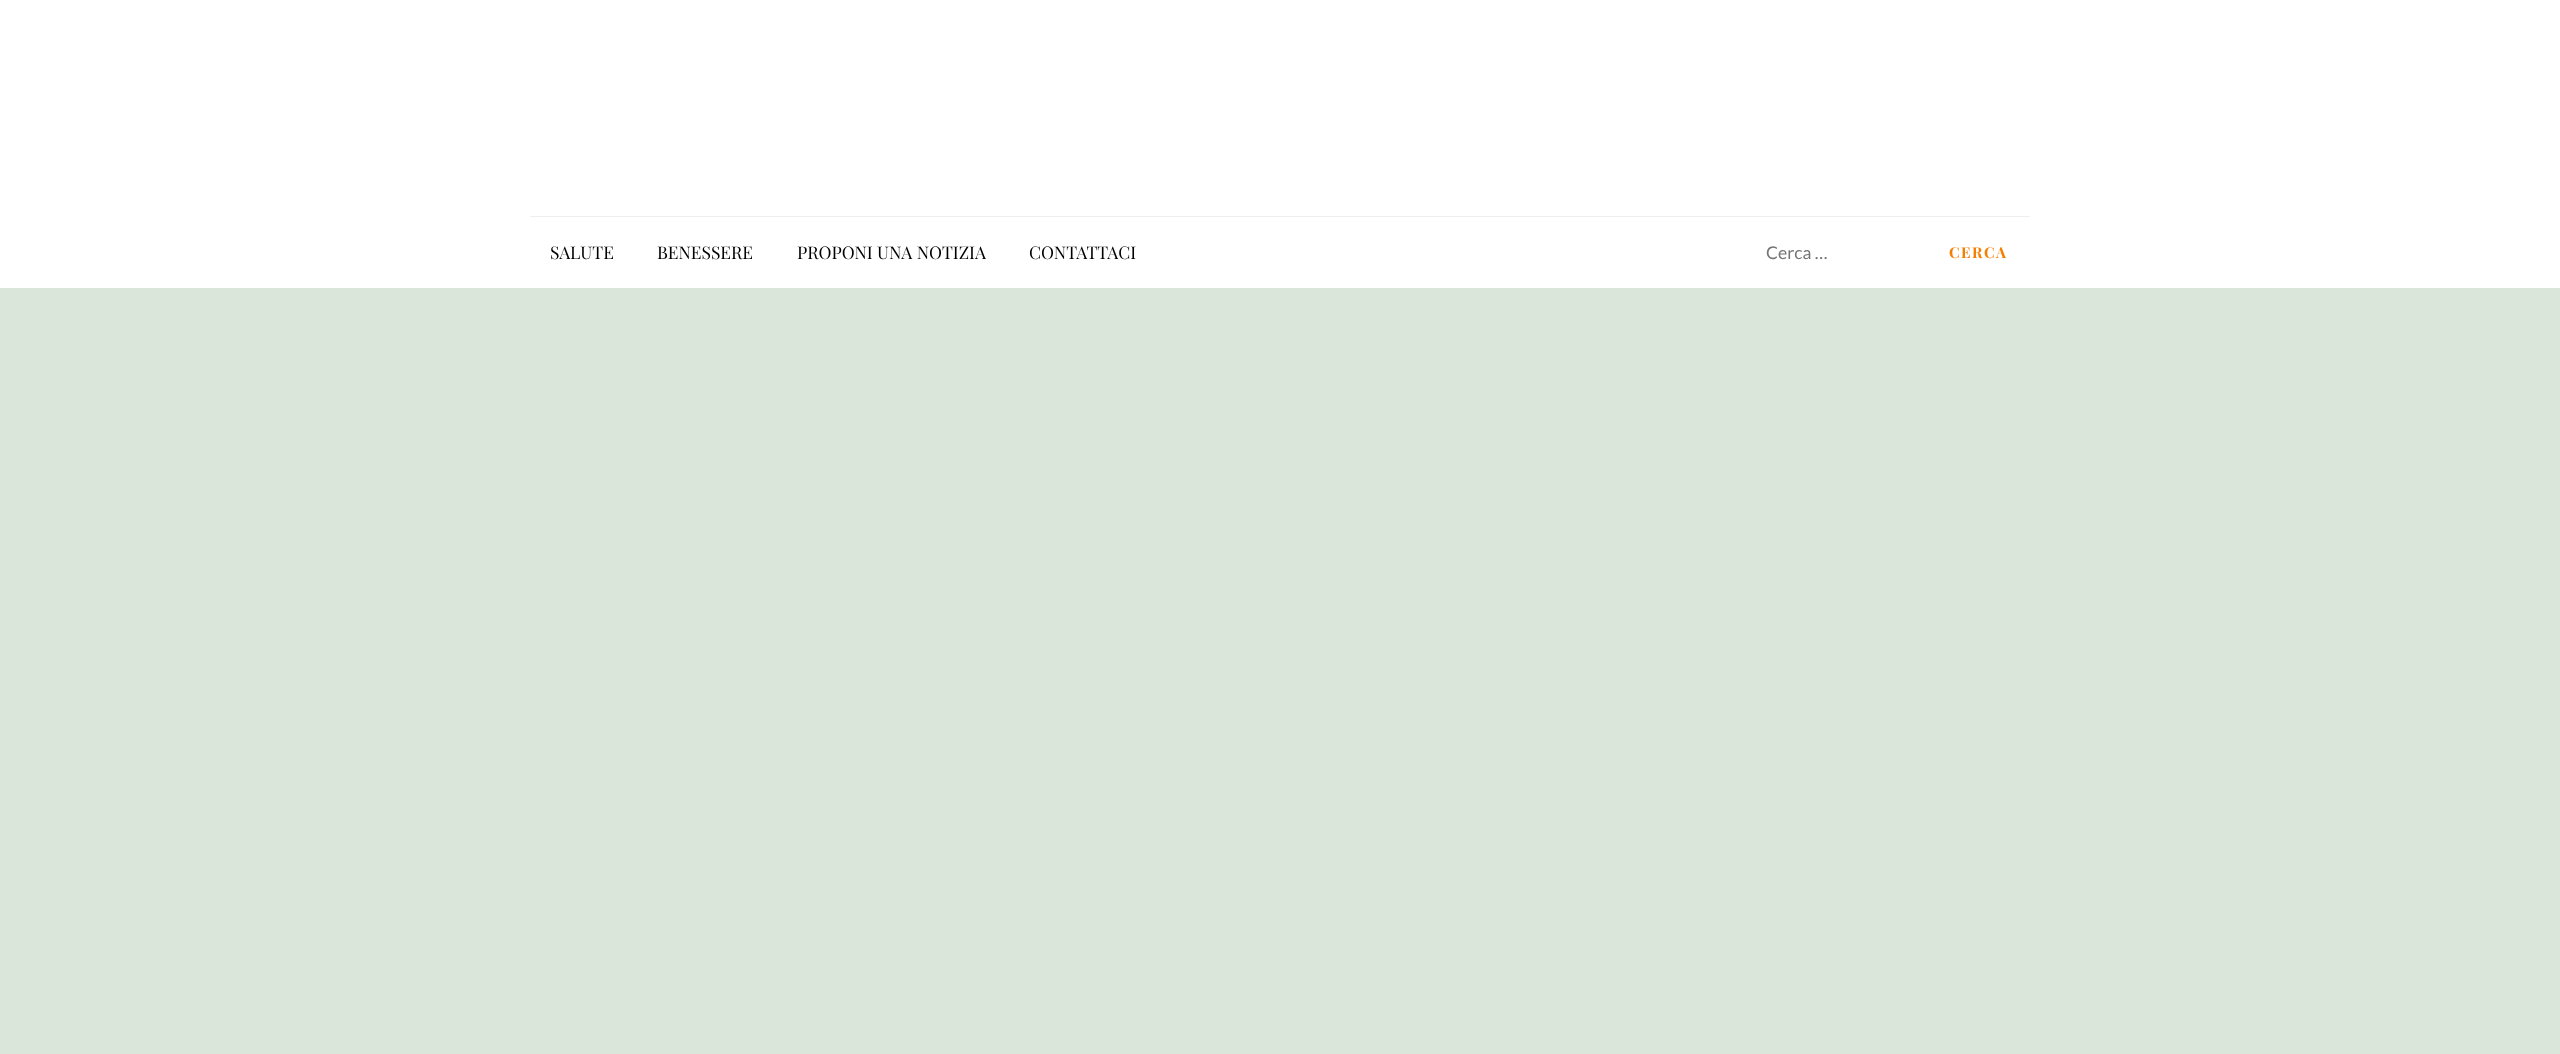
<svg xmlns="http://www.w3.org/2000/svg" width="2560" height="1054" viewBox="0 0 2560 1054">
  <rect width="100%" height="100%" fill="rgb(219,230,219)"/>
  <rect x="0" y="0" width="2560" height="288" fill="rgb(255,255,255)"/>
  <rect x="530" y="216" width="1500" height="1" fill="rgb(238,238,238)"/>
  <g font-family="Playfair Display" font-size="17.5" fill="rgb(0,0,0)">
    <text x="550" y="259">SALUTE</text>
    <text x="657" y="259">BENESSERE</text>
    <text x="797" y="259">PROPONI UNA NOTIZIA</text>
    <text x="1029" y="259">CONTATTACI</text>
  </g>
  <text x="1766" y="259" font-family="Lato" font-size="17.5" fill="rgb(117,117,117)">Cerca …</text>
  <text x="1949" y="258" font-family="Playfair Display" font-size="15" font-weight="bold" letter-spacing="1.5" fill="rgb(244,126,0)">CERCA</text>
</svg>
